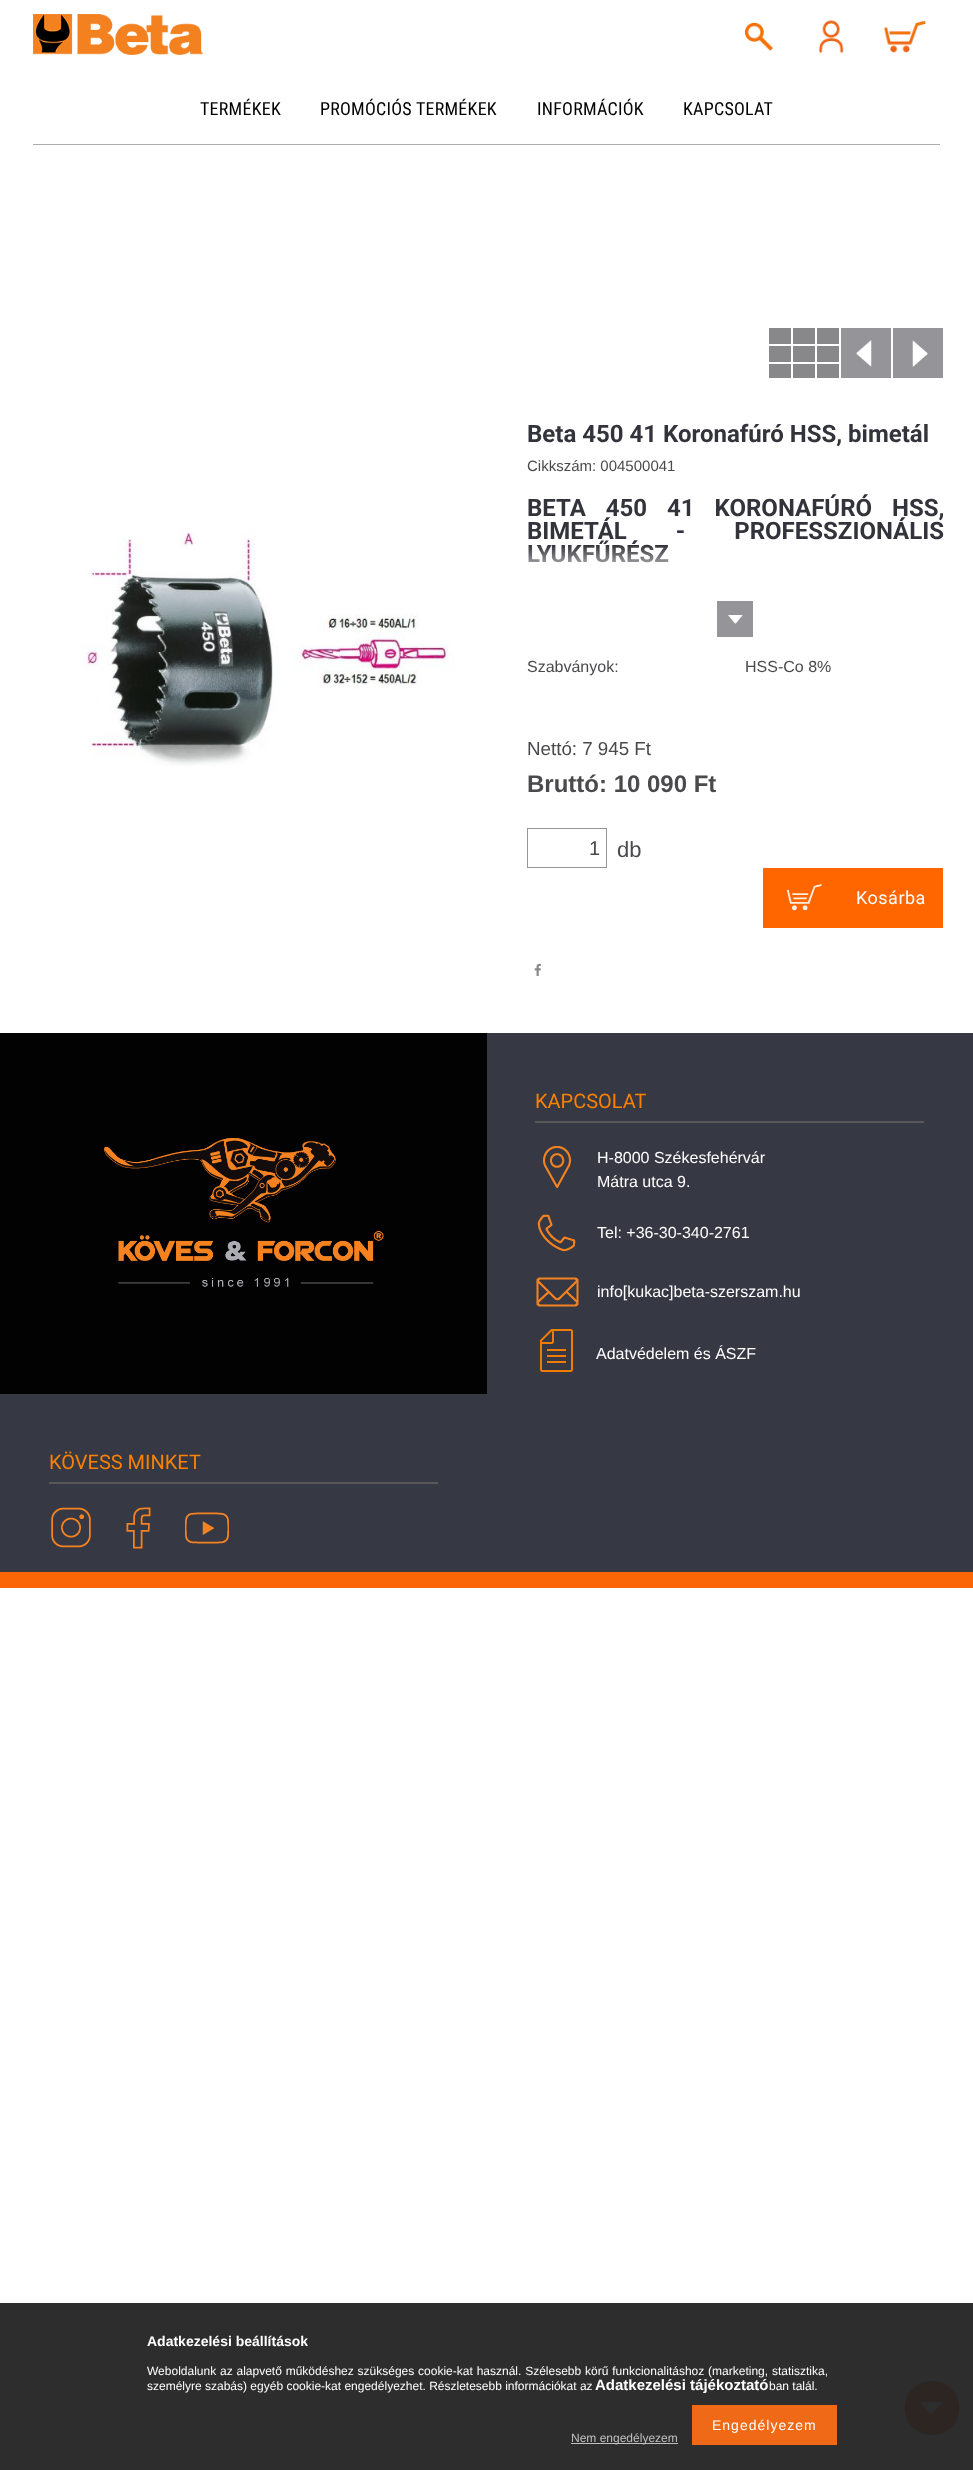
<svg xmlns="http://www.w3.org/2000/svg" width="973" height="2470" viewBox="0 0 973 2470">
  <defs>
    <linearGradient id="g1" gradientUnits="userSpaceOnUse" x1="735" y1="545" x2="735" y2="581"><stop offset="0" stop-color="rgb(255,255,255)" stop-opacity="0"/><stop offset="1" stop-color="rgb(255,255,255)"/></linearGradient>
  </defs>
  <rect width="100%" height="100%" fill="rgb(255,255,255)"/>
  <rect x="0" y="2303" width="973" height="167" fill="rgb(45,45,45)"/>
  <image x="33" y="14" width="170" height="41" href="pic1.png"/>
  <image x="745" y="22" width="28" height="29" href="pic2.png"/>
  <image x="819" y="20" width="25" height="33" href="pic3.png"/>
  <image x="883" y="20" width="43" height="33" href="pic4.png"/>
  <g font-family="Roboto Condensed" font-size="18" letter-spacing="0.25" fill="rgb(0,0,0)">
    <text x="200" y="115">TERMÉKEK</text>
    <text x="320" y="115">PROMÓCIÓS TERMÉKEK</text>
    <text x="537" y="115">INFORMÁCIÓK</text>
    <text x="683" y="115">KAPCSOLAT</text>
  </g>
  <rect x="33" y="144" width="907" height="1" fill="rgb(171,175,178)"/>
  <rect x="769" y="328" width="70" height="50" fill="rgb(136,136,139)"/>
  <image x="769" y="328" width="70" height="50" href="pic5.png"/>
  <rect x="841" y="328" width="50" height="50" fill="rgb(149,149,153)"/>
  <image x="856" y="340" width="16" height="27" href="pic6.png"/>
  <rect x="893" y="328" width="50" height="50" fill="rgb(149,149,153)"/>
  <image x="912" y="340" width="16" height="27" href="pic7.png"/>
  <image x="80" y="532" width="375" height="234" href="pic8.png"/>
  <text x="527" y="442" font-family="Roboto" font-size="24" font-weight="bold" fill="rgb(51,51,59)">Beta 450 41 Koronafúró HSS, bimetál</text>
  <text x="527" y="471" font-family="Liberation Sans" font-size="15" fill="rgb(74,74,77)">Cikkszám: 004500041</text>
  <g font-family="Roboto" font-size="24" font-weight="bold" fill="rgb(51,51,59)">
    <text>
      <tspan x="527" y="516" word-spacing="14">BETA 450 41 KORONAFÚRÓ HSS,</tspan>
      <tspan x="527" y="539" word-spacing="43">BIMETÁL - PROFESSZIONÁLIS</tspan>
      <tspan x="527" y="562">LYUKFŰRÉSZ</tspan>
    </text>
  </g>
  <rect x="528" y="546" width="140" height="17" fill="url(#g1)"/>
  <rect x="717" y="601" width="36" height="36" fill="rgb(149,149,153)"/>
  <image x="728" y="615" width="15" height="9" href="pic9.png"/>
  <g font-family="Liberation Sans" font-size="16" fill="rgb(74,74,77)">
    <text x="527" y="672">Szabványok:</text>
    <text x="745" y="672">HSS-Co 8%</text>
  </g>
  <text x="527" y="755" font-family="Liberation Sans" font-size="18.75" fill="rgb(74,74,77)">Nettó: 7 945 Ft</text>
  <text x="527" y="792" font-family="Liberation Sans" font-size="24" font-weight="bold" fill="rgb(74,74,77)">Bruttó: 10 090 Ft</text>
  <rect x="527.5" y="828.5" width="79" height="39" fill="none" stroke="rgb(149,149,153)"/>
  <text x="589" y="855" font-family="Liberation Sans" font-size="20" fill="rgb(74,74,77)">1</text>
  <text x="617" y="857" font-family="Liberation Sans" font-size="22" fill="rgb(74,74,77)">db</text>
  <rect x="763" y="868" width="180" height="60" fill="rgb(255,102,0)"/>
  <image x="787" y="884" width="35" height="27" href="pic10.png"/>
  <text x="856" y="904" font-family="Roboto" font-size="18" letter-spacing="0.5" fill="rgb(255,255,255)">Kosárba</text>
  <image x="534" y="963" width="7" height="13" href="pic11.png"/>
  <rect x="0" y="1033" width="973" height="539" fill="rgb(54,56,67)"/>
  <rect x="0" y="1572" width="973" height="16" fill="rgb(250,102,6)"/>
  <rect x="0" y="1033" width="487" height="361" fill="rgb(2,2,2)"/>
  <image x="104" y="1138" width="280" height="149" href="pic12.png"/>
  <rect x="535" y="1121" width="389" height="2" fill="rgb(89,88,86)"/>
  <text x="535" y="1108" font-family="Roboto" font-size="20" fill="rgb(248,130,4)">KAPCSOLAT</text>
  <image x="543" y="1146" width="28" height="42" href="pic13.png"/>
  <g font-family="Liberation Sans" font-size="16" fill="rgb(255,255,255)">
    <text>
      <tspan x="597" y="1163">H-8000 Székesfehérvár</tspan>
      <tspan x="597" y="1187">Mátra utca 9.</tspan>
    </text>
  </g>
  <image x="537" y="1214" width="39" height="38" href="pic14.png"/>
  <text x="597" y="1238" font-family="Liberation Sans" font-size="16" fill="rgb(255,255,255)">Tel: +36-30-340-2761</text>
  <image x="536" y="1277" width="43" height="30" href="pic15.png"/>
  <text x="597" y="1297" font-family="Liberation Sans" font-size="16" fill="rgb(255,255,255)">info[kukac]beta-szerszam.hu</text>
  <image x="540" y="1329" width="33" height="43" href="pic16.png"/>
  <text x="596" y="1359" font-family="Liberation Sans" font-size="16" fill="rgb(255,255,255)">Adatvédelem és ÁSZF</text>
  <rect x="49" y="1482" width="389" height="2" fill="rgb(89,88,86)"/>
  <text x="49" y="1469" font-family="Roboto" font-size="20" fill="rgb(248,130,4)">KÖVESS MINKET</text>
  <image x="51" y="1507" width="40" height="41" href="pic17.png"/>
  <image x="126" y="1507" width="25" height="42" href="pic18.png"/>
  <image x="185" y="1512" width="44" height="32" href="pic19.png"/>
  <path d="M932 2435C917 2435 905 2423 905 2408C905 2393 917 2381 932 2381C947 2381 959 2393 959 2408C959 2423 947 2435 932 2435Z" fill="rgb(44,37,33)"/>
  <image x="920" y="2402" width="23" height="13" href="pic20.png"/>
  <text x="147" y="2346" font-family="Liberation Sans" font-size="14" font-weight="bold" fill="rgb(255,255,255)">Adatkezelési beállítások</text>
  <g font-family="Liberation Sans" font-size="12" fill="rgb(255,255,255)">
    <text>
      <tspan x="147" y="2375" word-spacing="0.5">Weboldalunk az alapvető működéshez szükséges cookie-kat használ. Szélesebb körű funkcionalitáshoz (marketing, statisztika,</tspan>
      <tspan x="147" y="2390">személyre szabás) egyéb cookie-kat engedélyezhet. Részletesebb információkat az</tspan>
    </text>
  </g>
  <text x="595" y="2390" font-family="Liberation Sans" font-size="15" font-weight="bold" fill="rgb(255,255,255)">Adatkezelési tájékoztató</text>
  <text x="769" y="2390" font-family="Liberation Sans" font-size="12" fill="rgb(255,255,255)">ban talál.</text>
  <rect x="692" y="2405" width="145" height="40" fill="rgb(239,105,22)"/>
  <text x="712" y="2430" font-family="Liberation Sans" font-size="14" letter-spacing="1" fill="rgb(255,255,255)">Engedélyezem</text>
  <rect x="571" y="2443" width="107" height="1" fill="rgb(192,192,192)"/>
  <text x="571" y="2442" font-family="Liberation Sans" font-size="12" fill="rgb(192,192,192)">Nem engedélyezem</text>
</svg>
